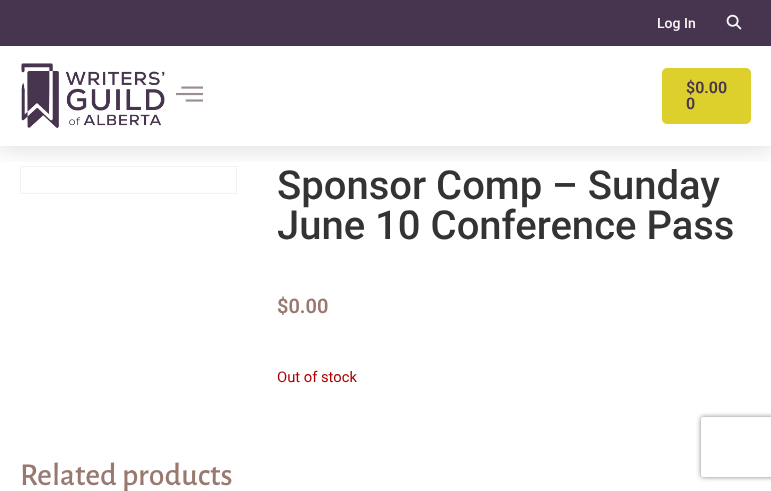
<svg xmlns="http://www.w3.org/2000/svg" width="771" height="491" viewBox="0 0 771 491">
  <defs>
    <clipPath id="clip1"><rect x="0" y="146" width="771" height="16"/></clipPath>
    <clipPath id="clip2"><path d="M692 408H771V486H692ZM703 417H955C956 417 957 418 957 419V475C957 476 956 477 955 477H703C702 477 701 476 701 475V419C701 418 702 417 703 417Z" clip-rule="evenodd"/></clipPath>
  </defs>
  <rect width="100%" height="100%" fill="rgb(255,255,255)"/>
  <g clip-path="url(#clip1)">
    <rect x="-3" y="41" width="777" height="106" fill="rgba(0,0,0,0.15)" filter="blur(13.5px)"/>
  </g>
  <rect x="0" y="0" width="771" height="46" fill="rgb(71,52,78)"/>
  <text x="657" y="28" font-family="Roboto" font-size="14" font-weight="500" fill="rgb(249,249,249)">Log In</text>
  <image x="726" y="14" width="16" height="16" href="pic1.png"/>
  <image x="21" y="63" width="144" height="65" href="pic2.png"/>
  <image x="176" y="86" width="27" height="16" href="pic3.png"/>
  <rect x="662" y="68" width="89" height="56" rx="5" fill="rgb(221,208,45)"/>
  <g font-family="Roboto" font-size="16" font-weight="600" fill="rgb(71,52,78)">
    <text>
      <tspan x="686" y="93">$0.00</tspan>
      <tspan x="686" y="109">0</tspan>
    </text>
  </g>
  <rect x="20.5" y="166.5" width="216" height="27" fill="none" stroke="rgb(242,242,242)"/>
  <g font-family="Roboto" font-size="40" font-weight="500" fill="rgb(51,51,51)">
    <text>
      <tspan x="277" y="199">Sponsor Comp – Sunday</tspan>
      <tspan x="277" y="239">June 10 Conference Pass</tspan>
    </text>
  </g>
  <text x="277" y="313" font-family="Roboto" font-size="20" font-weight="600" fill="rgb(153,120,111)">$0.00</text>
  <text x="277" y="382" font-family="Roboto" font-size="14.75" fill="rgb(170,0,0)">Out of stock</text>
  <text x="20" y="485" font-family="Alegreya Sans" font-size="32" font-weight="500" fill="rgb(153,120,111)">Related products</text>
  <g clip-path="url(#clip2)">
    <rect x="701" y="417" width="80" height="60" rx="2" fill="rgb(128,128,128)" filter="blur(2.5px)"/>
  </g>
</svg>
